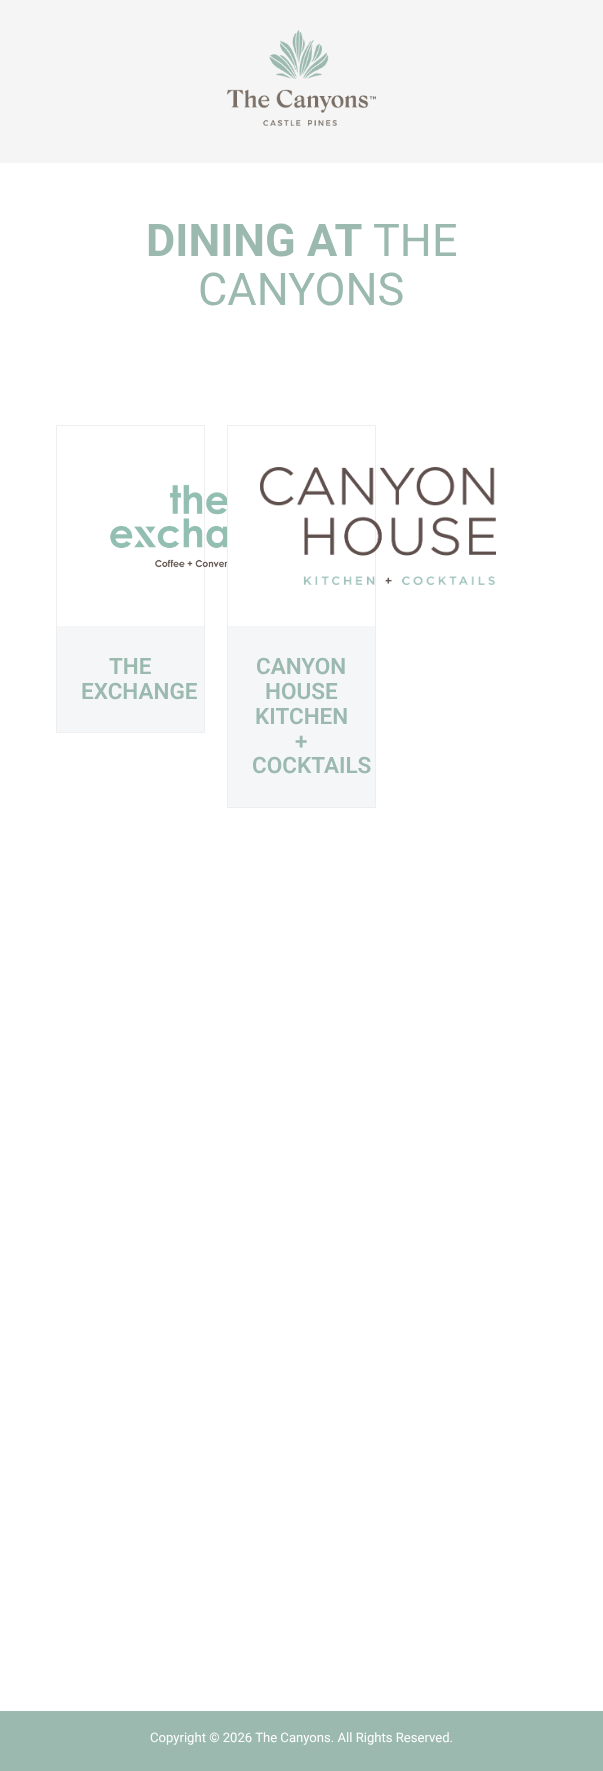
<svg xmlns="http://www.w3.org/2000/svg" width="603" height="1771" viewBox="0 0 603 1771">
  <rect width="100%" height="100%" fill="rgb(255,255,255)"/>
  <rect x="0" y="0" width="603" height="163" fill="rgb(245,245,245)"/>
  <image x="227" y="30" width="149" height="96" href="pic1.png"/>
  <text x="146" y="256" font-family="Roboto" font-size="45" font-weight="bold" fill="rgb(155,185,174)">DINING AT</text>
  <g font-family="Roboto" font-size="45" fill="rgb(155,185,174)">
    <text x="373" y="256">THE</text>
    <text x="198" y="305">CANYONS</text>
  </g>
  <rect x="56.5" y="425.5" width="148" height="307" fill="none" stroke="rgb(238,238,238)"/>
  <image x="110" y="484" width="117" height="84" href="pic2.png"/>
  <path d="M57 626H204V730C204 731 203 732 202 732H59C58 732 57 731 57 730Z" fill="rgb(245,246,247)"/>
  <g font-family="Roboto" font-size="22.5" font-weight="600" fill="rgb(155,185,174)">
    <text x="109" y="674">THE</text>
    <text x="81" y="699">EXCHANGE</text>
  </g>
  <rect x="227.5" y="425.5" width="148" height="382" fill="none" stroke="rgb(238,238,238)"/>
  <image x="260" y="467" width="236" height="118" href="pic3.png"/>
  <path d="M228 626H375V805C375 806 374 807 373 807H230C229 807 228 806 228 805Z" fill="rgb(245,246,247)"/>
  <g font-family="Roboto" font-size="22.5" font-weight="600" fill="rgb(155,185,174)">
    <text x="256" y="674">CANYON</text>
    <text x="265" y="699">HOUSE</text>
    <text x="255" y="724">KITCHEN</text>
    <text x="295" y="749">+</text>
    <text x="252" y="773">COCKTAILS</text>
  </g>
  <rect x="0" y="1711" width="603" height="60" fill="rgb(155,185,174)"/>
  <text x="150" y="1742" font-family="Roboto" font-size="13.1" fill="rgb(255,255,255)">Copyright © 2026 The Canyons. All Rights Reserved.</text>
</svg>
